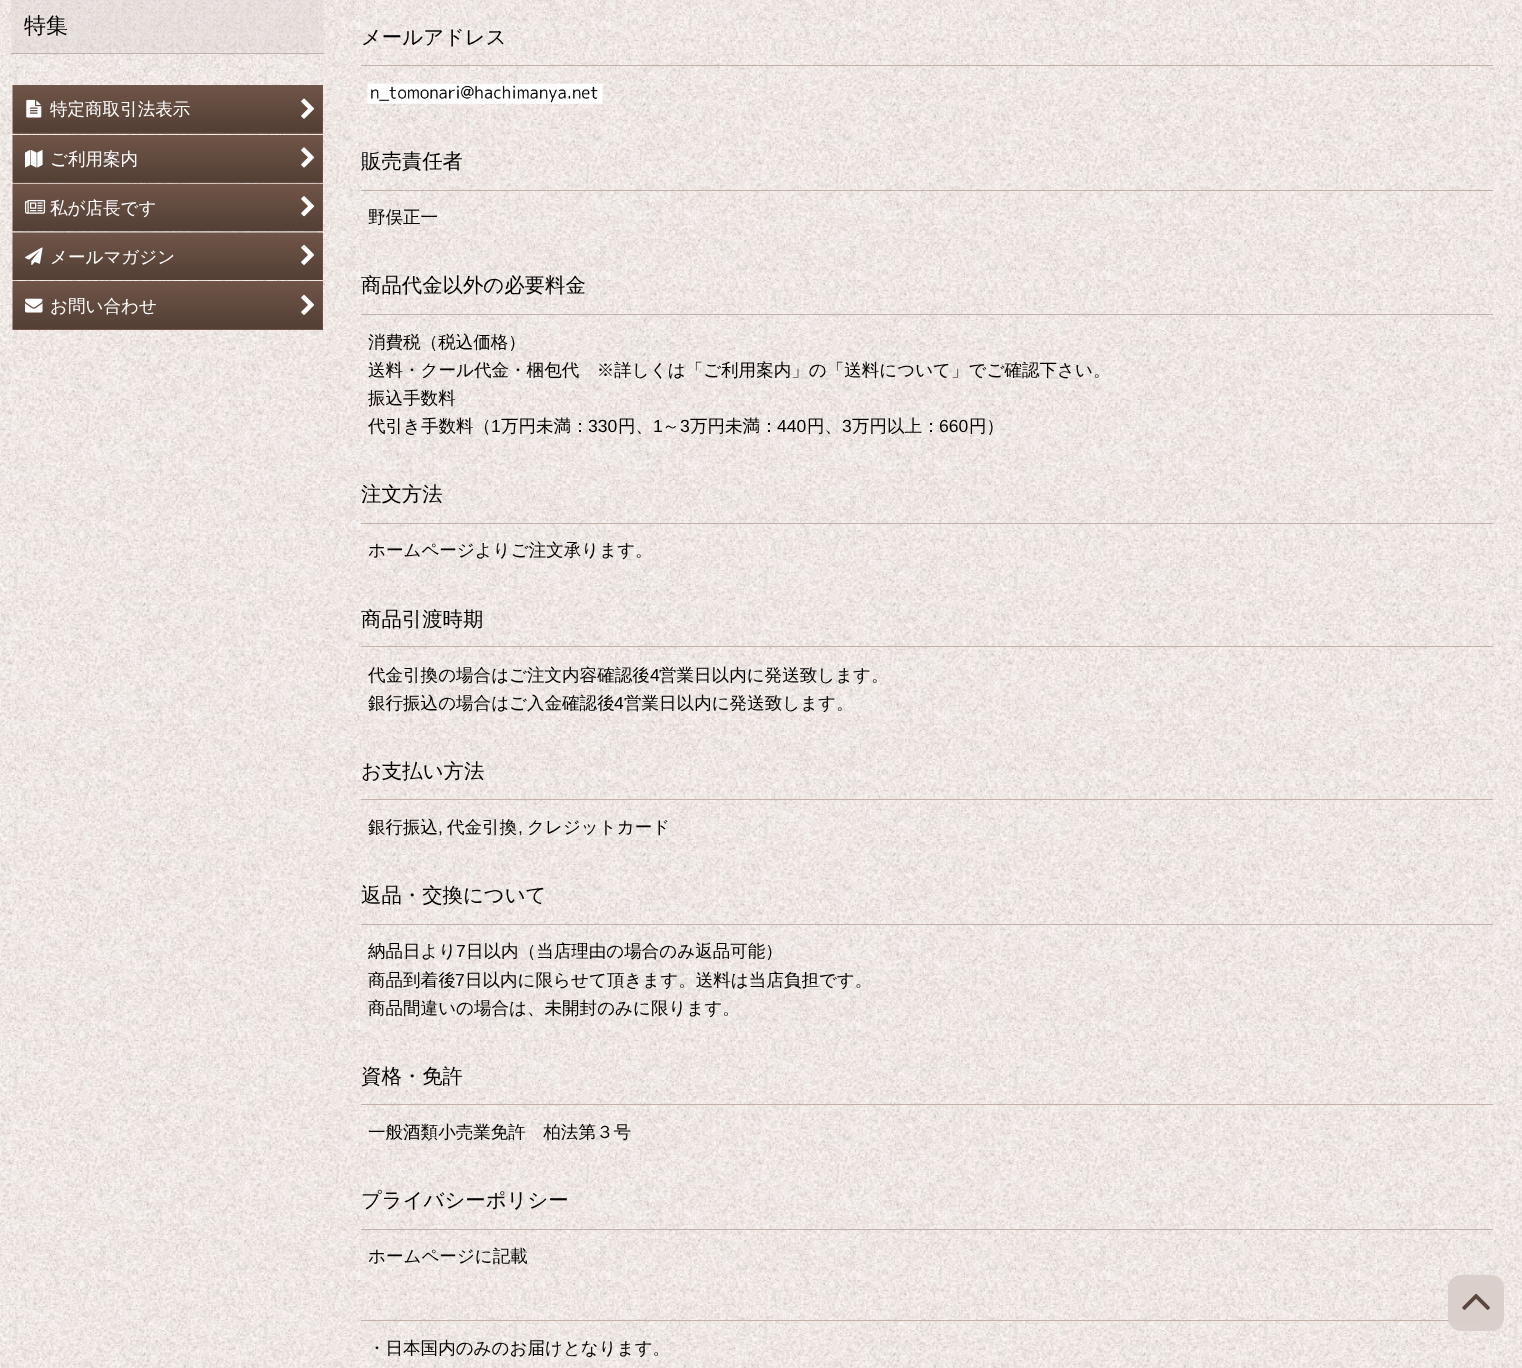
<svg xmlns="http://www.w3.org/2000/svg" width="1522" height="1368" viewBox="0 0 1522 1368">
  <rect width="100%" height="100%" fill="rgb(255,255,255)"/>
  <image x="0" y="0" width="1522" height="1368" href="pic1.png"/>
  <image x="11" y="0" width="313" height="53" href="pic2.png"/>
  <rect x="11" y="53" width="313" height="1" fill="rgb(193,177,169)"/>
  <text x="24" y="33" font-family="WenQuanYi Zen Hei" font-size="22" font-weight="500" fill="rgb(0,0,0)">特集</text>
  <rect x="13" y="85" width="310" height="49" fill="rgb(120,91,77)"/>
  <image x="12" y="85" width="311" height="49" href="pic3.png"/>
  <image x="26" y="99" width="16" height="19" href="pic4.png"/>
  <text x="50" y="115" font-family="WenQuanYi Zen Hei" font-size="17.55" font-weight="500" fill="rgb(255,255,255)">特定商取引法表示</text>
  <image x="301" y="98" width="14" height="21" href="pic5.png"/>
  <rect x="13" y="135" width="310" height="48" fill="rgb(120,91,77)"/>
  <image x="12" y="135" width="311" height="48" href="pic6.png"/>
  <image x="25" y="150" width="18" height="18" href="pic7.png"/>
  <text x="50" y="165" font-family="WenQuanYi Zen Hei" font-size="17.55" font-weight="500" fill="rgb(255,255,255)">ご利用案内</text>
  <image x="301" y="147" width="14" height="21" href="pic8.png"/>
  <rect x="322" y="184" width="1" height="47" fill="rgb(120,91,77)"/>
  <image x="12" y="183" width="311" height="49" href="pic9.png"/>
  <image x="25" y="199" width="21" height="15" href="pic10.png"/>
  <text x="50" y="214" font-family="WenQuanYi Zen Hei" font-size="17.55" font-weight="500" fill="rgb(255,255,255)">私が店長です</text>
  <image x="301" y="196" width="14" height="21" href="pic11.png"/>
  <rect x="322" y="233" width="1" height="47" fill="rgb(120,91,77)"/>
  <image x="12" y="232" width="311" height="48" href="pic12.png"/>
  <image x="25" y="247" width="18" height="18" href="pic13.png"/>
  <text x="50" y="263" font-family="WenQuanYi Zen Hei" font-size="17.55" font-weight="500" fill="rgb(255,255,255)">メールマガジン</text>
  <image x="301" y="244" width="14" height="21" href="pic14.png"/>
  <rect x="13" y="281" width="310" height="49" fill="rgb(120,91,77)"/>
  <image x="12" y="281" width="311" height="49" href="pic15.png"/>
  <image x="25" y="298" width="18" height="15" href="pic16.png"/>
  <text x="50" y="312" font-family="WenQuanYi Zen Hei" font-size="17.55" font-weight="500" fill="rgb(255,255,255)">お問い合わせ</text>
  <image x="301" y="294" width="14" height="21" href="pic17.png"/>
  <rect x="361" y="65" width="1132" height="1" fill="rgb(193,177,169)"/>
  <text x="361" y="44" font-family="WenQuanYi Zen Hei" font-size="20.4" font-weight="500" fill="rgb(0,0,0)">メールアドレス</text>
  <image x="367" y="83" width="236" height="21" href="pic18.png"/>
  <rect x="361" y="190" width="1132" height="1" fill="rgb(193,177,169)"/>
  <text x="361" y="168" font-family="WenQuanYi Zen Hei" font-size="20.4" font-weight="500" fill="rgb(0,0,0)">販売責任者</text>
  <text x="368" y="223" font-family="WenQuanYi Zen Hei" font-size="17.55" font-weight="500" fill="rgb(0,0,0)">野俣正一</text>
  <rect x="361" y="314" width="1132" height="1" fill="rgb(193,177,169)"/>
  <text x="361" y="292" font-family="WenQuanYi Zen Hei" font-size="20.4" font-weight="500" fill="rgb(0,0,0)">商品代金以外の必要料金</text>
  <g font-family="WenQuanYi Zen Hei" font-size="17.55" font-weight="500" fill="rgb(0,0,0)">
    <text>
      <tspan x="368" y="348">消費税（税込価格）</tspan>
      <tspan x="368" y="376">送料・クール代金・梱包代　※詳しくは「ご利用案内」の「送料について」でご確認下さい。</tspan>
      <tspan x="368" y="404">振込手数料</tspan>
      <tspan x="368" y="432">代引き手数料（</tspan>
    </text>
  </g>
  <text x="491" y="432" font-family="Liberation Sans" font-size="17.55" fill="rgb(0,0,0)">1</text>
  <text x="501" y="432" font-family="WenQuanYi Zen Hei" font-size="17.55" font-weight="500" fill="rgb(0,0,0)">万円未満：</text>
  <text x="588" y="432" font-family="Liberation Sans" font-size="17.55" fill="rgb(0,0,0)">330</text>
  <text x="618" y="432" font-family="WenQuanYi Zen Hei" font-size="17.55" font-weight="500" fill="rgb(0,0,0)">円、</text>
  <text x="653" y="432" font-family="Liberation Sans" font-size="17.55" fill="rgb(0,0,0)">1</text>
  <text x="662" y="432" font-family="WenQuanYi Zen Hei" font-size="17.55" font-weight="500" fill="rgb(0,0,0)">～</text>
  <text x="680" y="432" font-family="Liberation Sans" font-size="17.55" fill="rgb(0,0,0)">3</text>
  <text x="690" y="432" font-family="WenQuanYi Zen Hei" font-size="17.55" font-weight="500" fill="rgb(0,0,0)">万円未満：</text>
  <text x="777" y="432" font-family="Liberation Sans" font-size="17.55" fill="rgb(0,0,0)">440</text>
  <text x="807" y="432" font-family="WenQuanYi Zen Hei" font-size="17.55" font-weight="500" fill="rgb(0,0,0)">円、</text>
  <text x="842" y="432" font-family="Liberation Sans" font-size="17.55" fill="rgb(0,0,0)">3</text>
  <text x="852" y="432" font-family="WenQuanYi Zen Hei" font-size="17.55" font-weight="500" fill="rgb(0,0,0)">万円以上：</text>
  <text x="939" y="432" font-family="Liberation Sans" font-size="17.55" fill="rgb(0,0,0)">660</text>
  <text x="969" y="432" font-family="WenQuanYi Zen Hei" font-size="17.55" font-weight="500" fill="rgb(0,0,0)">円）</text>
  <rect x="361" y="523" width="1132" height="1" fill="rgb(193,177,169)"/>
  <text x="361" y="501" font-family="WenQuanYi Zen Hei" font-size="20.4" font-weight="500" fill="rgb(0,0,0)">注文方法</text>
  <text x="368" y="556" font-family="WenQuanYi Zen Hei" font-size="17.55" font-weight="500" fill="rgb(0,0,0)">ホームページよりご注文承ります。</text>
  <rect x="361" y="646" width="1132" height="1" fill="rgb(193,177,169)"/>
  <text x="361" y="626" font-family="WenQuanYi Zen Hei" font-size="20.4" font-weight="500" fill="rgb(0,0,0)">商品引渡時期</text>
  <text x="368" y="681" font-family="WenQuanYi Zen Hei" font-size="17.55" font-weight="500" fill="rgb(0,0,0)">代金引換の場合はご注文内容確認後</text>
  <text x="650" y="681" font-family="Liberation Sans" font-size="17.55" fill="rgb(0,0,0)">4</text>
  <g font-family="WenQuanYi Zen Hei" font-size="17.55" font-weight="500" fill="rgb(0,0,0)">
    <text x="659" y="681">営業日以内に発送致します。</text>
    <text x="368" y="709">銀行振込の場合はご入金確認後</text>
  </g>
  <text x="614" y="709" font-family="Liberation Sans" font-size="17.55" fill="rgb(0,0,0)">4</text>
  <text x="624" y="709" font-family="WenQuanYi Zen Hei" font-size="17.55" font-weight="500" fill="rgb(0,0,0)">営業日以内に発送致します。</text>
  <rect x="361" y="799" width="1132" height="1" fill="rgb(193,177,169)"/>
  <text x="361" y="778" font-family="WenQuanYi Zen Hei" font-size="20.4" font-weight="500" fill="rgb(0,0,0)">お支払い方法</text>
  <text x="368" y="833" font-family="WenQuanYi Zen Hei" font-size="17.55" font-weight="500" fill="rgb(0,0,0)">銀行振込</text>
  <text x="438" y="833" font-family="Liberation Sans" font-size="17.55" fill="rgb(0,0,0)">,</text>
  <text x="447" y="833" font-family="WenQuanYi Zen Hei" font-size="17.55" font-weight="500" fill="rgb(0,0,0)">代金引換</text>
  <text x="518" y="833" font-family="Liberation Sans" font-size="17.55" fill="rgb(0,0,0)">,</text>
  <text x="527" y="833" font-family="WenQuanYi Zen Hei" font-size="17.55" font-weight="500" fill="rgb(0,0,0)">クレジットカード</text>
  <rect x="361" y="924" width="1132" height="1" fill="rgb(193,177,169)"/>
  <text x="361" y="902" font-family="WenQuanYi Zen Hei" font-size="20.4" font-weight="500" fill="rgb(0,0,0)">返品・交換について</text>
  <text x="368" y="957" font-family="WenQuanYi Zen Hei" font-size="17.55" font-weight="500" fill="rgb(0,0,0)">納品日より</text>
  <text x="456" y="957" font-family="Liberation Sans" font-size="17.55" fill="rgb(0,0,0)">7</text>
  <g font-family="WenQuanYi Zen Hei" font-size="17.55" font-weight="500" fill="rgb(0,0,0)">
    <text x="466" y="957">日以内（当店理由の場合のみ返品可能）</text>
    <text x="368" y="986">商品到着後</text>
  </g>
  <text x="455" y="986" font-family="Liberation Sans" font-size="17.55" fill="rgb(0,0,0)">7</text>
  <g font-family="WenQuanYi Zen Hei" font-size="17.55" font-weight="500" fill="rgb(0,0,0)">
    <text x="465" y="986">日以内に限らせて頂きます。送料は当店負担です。</text>
    <text x="368" y="1014">商品間違いの場合は、未開封のみに限ります。</text>
  </g>
  <rect x="361" y="1104" width="1132" height="1" fill="rgb(193,177,169)"/>
  <text x="361" y="1083" font-family="WenQuanYi Zen Hei" font-size="20.4" font-weight="500" fill="rgb(0,0,0)">資格・免許</text>
  <text x="368" y="1138" font-family="WenQuanYi Zen Hei" font-size="17.55" font-weight="500" fill="rgb(0,0,0)">一般酒類小売業免許　柏法第３号</text>
  <rect x="361" y="1229" width="1132" height="1" fill="rgb(193,177,169)"/>
  <text x="361" y="1207" font-family="WenQuanYi Zen Hei" font-size="20.4" font-weight="500" fill="rgb(0,0,0)">プライバシーポリシー</text>
  <text x="368" y="1262" font-family="WenQuanYi Zen Hei" font-size="17.55" font-weight="500" fill="rgb(0,0,0)">ホームページに記載</text>
  <rect x="361" y="1320" width="1132" height="1" fill="rgb(193,177,169)"/>
  <text x="368" y="1354" font-family="WenQuanYi Zen Hei" font-size="17.55" font-weight="500" fill="rgb(0,0,0)">・日本国内のみのお届けとなります。</text>
  <rect x="1448" y="1275" width="56" height="56" rx="13" fill="rgba(217,206,202,0.96)"/>
  <image x="1462" y="1293" width="28" height="17" href="pic19.png"/>
</svg>
